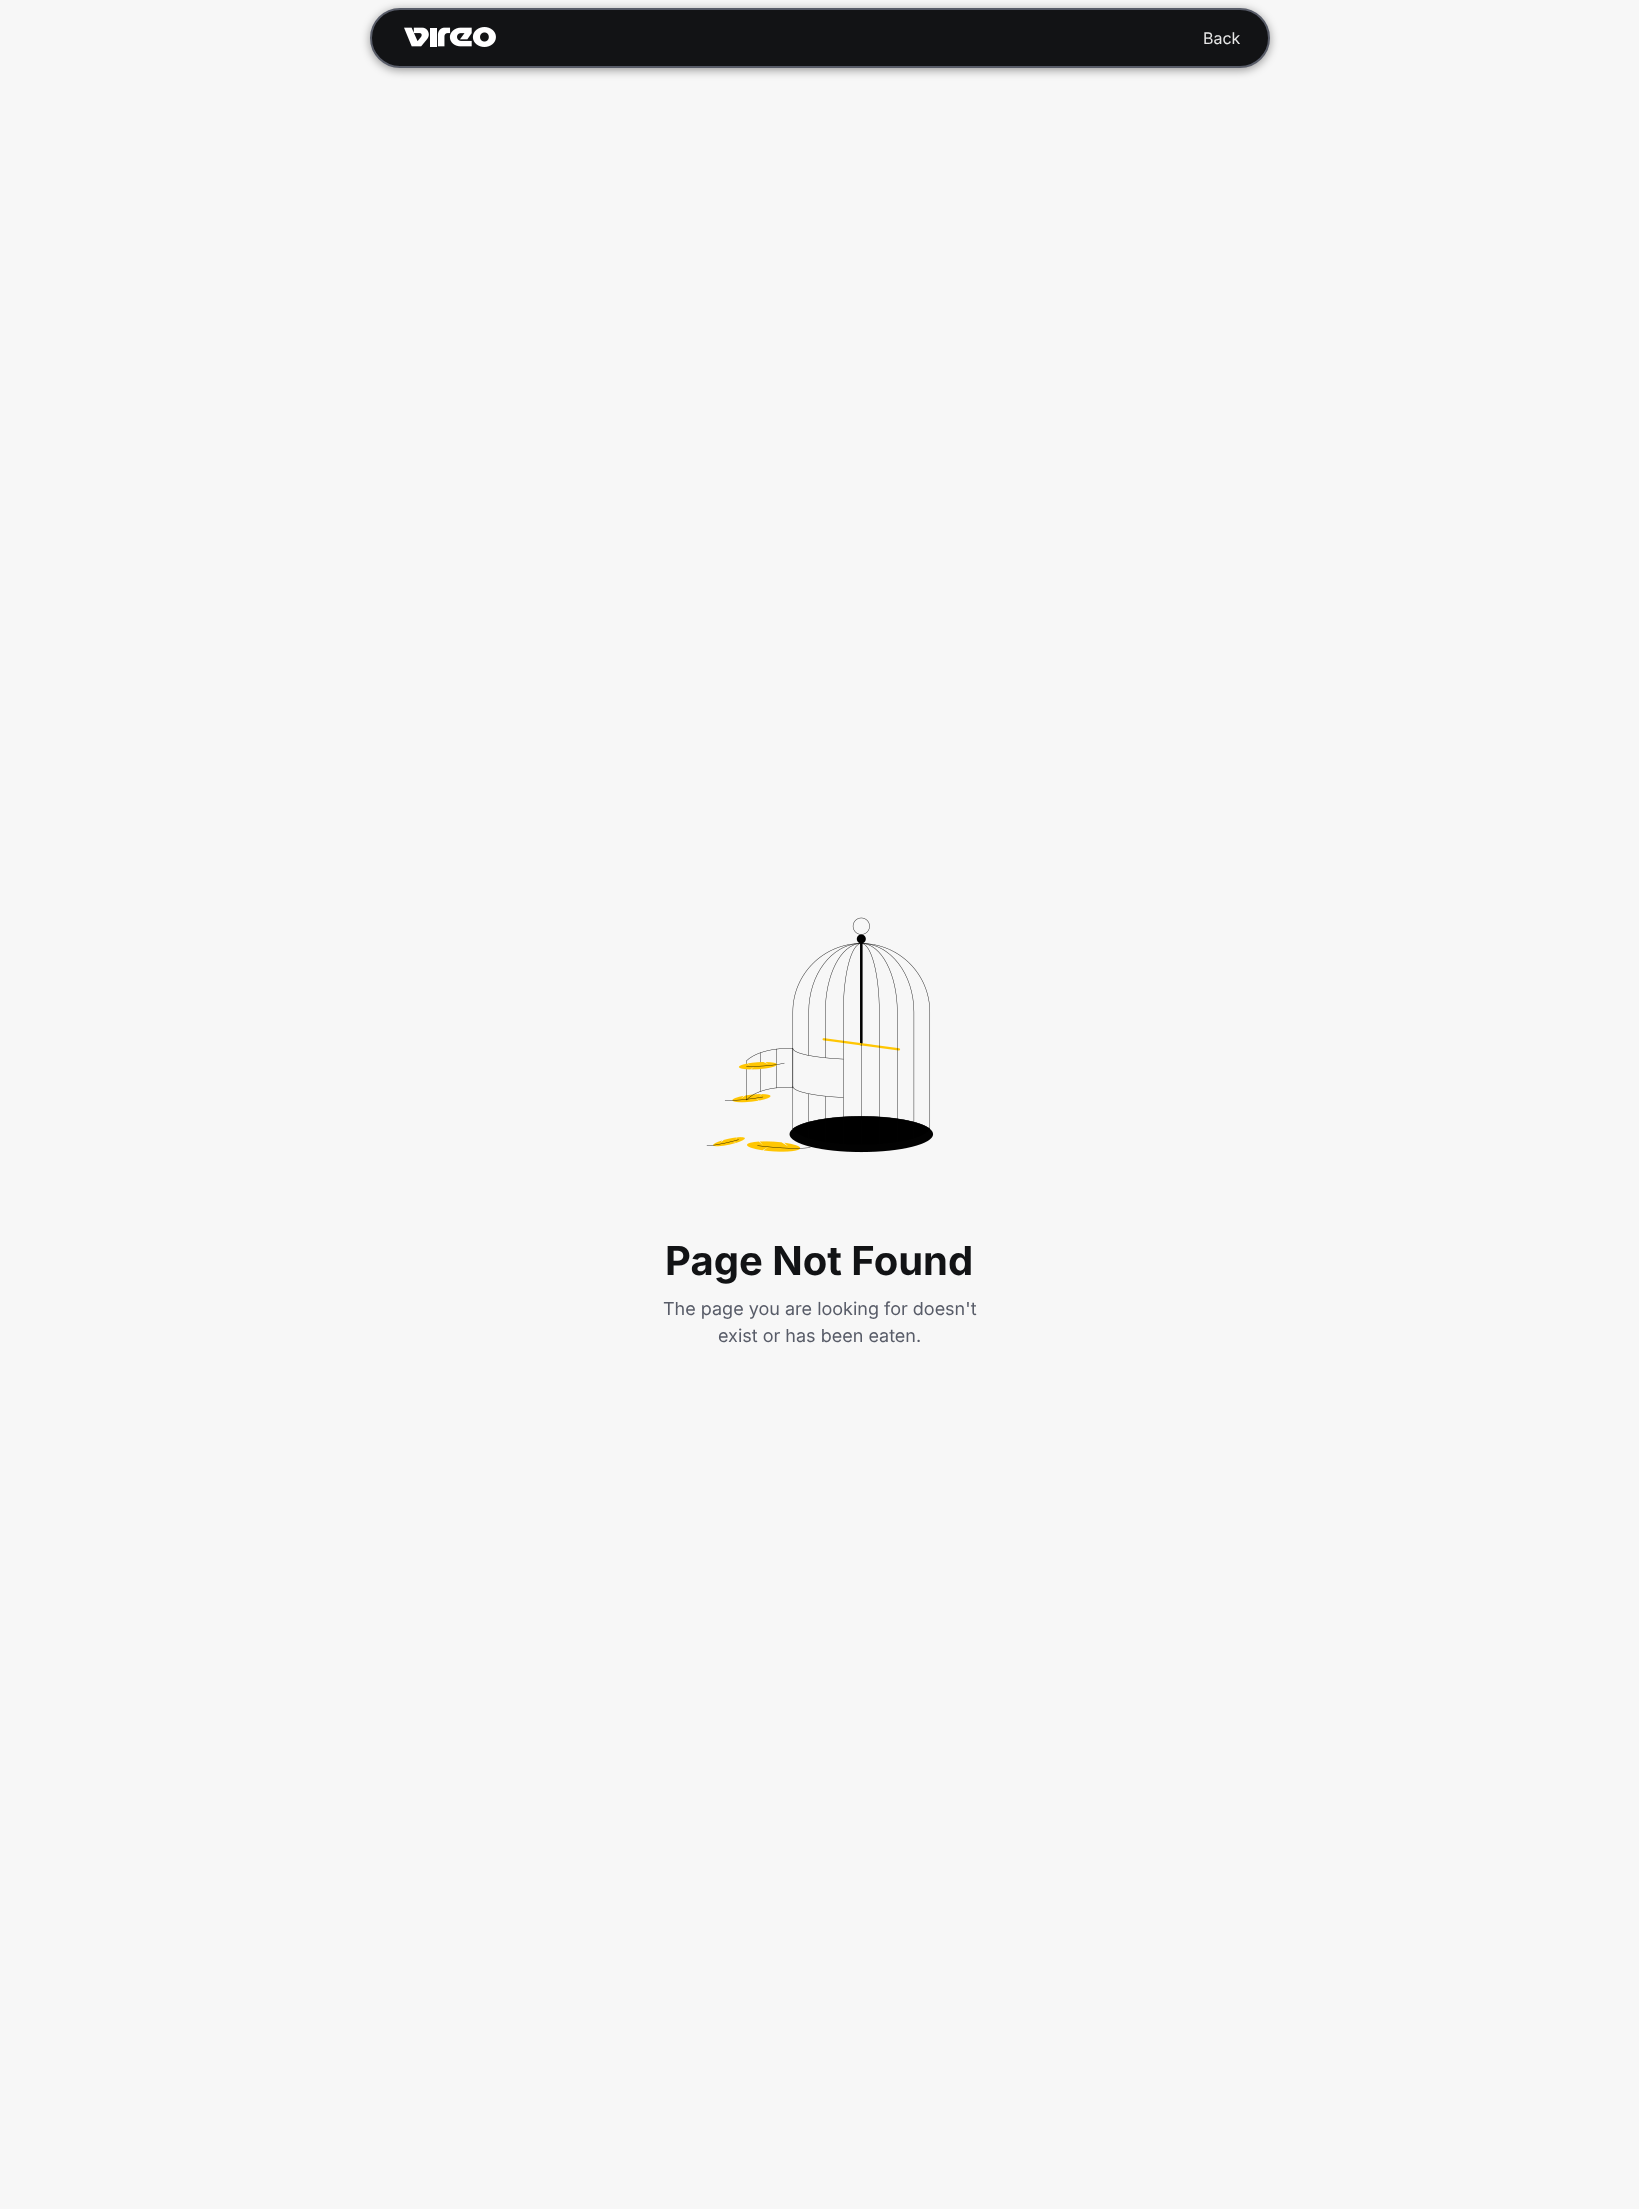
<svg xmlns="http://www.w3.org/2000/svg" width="1639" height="2209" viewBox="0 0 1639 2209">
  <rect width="100%" height="100%" fill="rgb(247,247,247)"/>
  <rect x="370" y="10" width="900" height="60" rx="30" fill="rgba(0,0,0,0.4)" filter="blur(5px)"/>
  <rect x="371" y="9" width="898" height="58" rx="29" fill="rgb(18,19,21)" stroke="rgb(88,92,104)" stroke-width="2"/>
  <image x="404" y="27" width="92" height="20" href="pic1.png"/>
  <text x="1203" y="44" font-family="Inter" font-size="16" fill="rgb(231,231,231)">Back</text>
  <image x="706" y="917" width="228" height="236" href="pic2.png"/>
  <text x="665" y="1275" font-family="Inter" font-size="40" font-weight="bold" fill="rgb(18,19,21)">Page Not Found</text>
  <g font-family="Inter" font-size="18" fill="rgb(88,92,104)">
    <text x="663" y="1315">The page you are looking for doesn't</text>
    <text x="718" y="1342">exist or has been eaten.</text>
  </g>
</svg>
